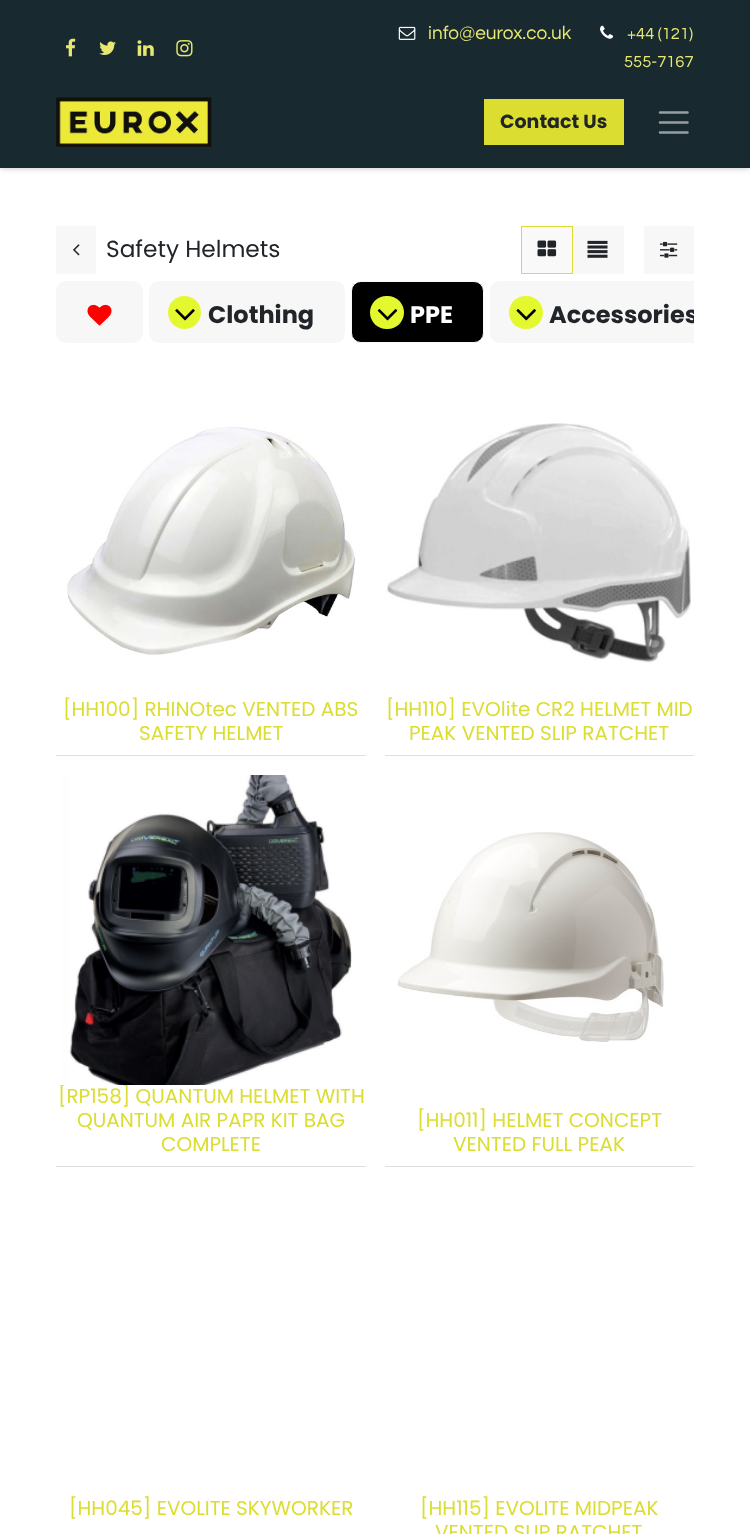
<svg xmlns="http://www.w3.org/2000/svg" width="750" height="1534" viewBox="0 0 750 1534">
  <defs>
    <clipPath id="clip1"><rect x="56" y="281" width="638" height="62"/></clipPath>
  </defs>
  <rect width="100%" height="100%" fill="rgb(255,255,255)"/>
  <rect x="0" y="0" width="750" height="168" fill="rgba(0,0,0,0.25)" filter="blur(3px)"/>
  <rect x="0" y="0" width="750" height="168" fill="rgb(25,41,48)"/>
  <image x="66" y="38" width="10" height="19" href="pic1.png"/>
  <image x="99" y="41" width="17" height="14" href="pic2.png"/>
  <image x="137" y="40" width="17" height="16" href="pic3.png"/>
  <image x="176" y="40" width="17" height="17" href="pic4.png"/>
  <image x="398" y="26" width="18" height="14" href="pic5.png"/>
  <text x="428" y="39" font-family="Questrial" font-size="19" fill="rgb(230,232,114)">info@eurox.co.uk</text>
  <image x="600" y="25" width="13" height="14" href="pic6.png"/>
  <g font-family="Questrial" font-size="16.5" fill="rgb(230,232,114)">
    <text x="627" y="39">+44 (121)</text>
    <text x="624" y="67">555-7167</text>
  </g>
  <image x="56" y="97" width="156" height="51" href="pic7.png"/>
  <rect x="484" y="99" width="140" height="46" fill="rgb(219,221,48)"/>
  <text x="500" y="128" font-family="Poppins" font-size="19" font-weight="bold" fill="rgb(33,37,41)">Contact Us</text>
  <path d="M660 112.5H687.5M660 122.5H687.5M660 132.5H687.5" fill="none" stroke="rgb(152,159,162)" stroke-width="2.5" stroke-linecap="round"/>
  <rect x="56" y="226" width="40" height="48" fill="rgb(247,247,247)"/>
  <image x="73" y="244" width="7" height="12" href="pic8.png"/>
  <text x="106" y="257" font-family="Poppins" font-size="23.25" fill="rgb(33,37,41)">Safety Helmets</text>
  <rect x="521.5" y="226.5" width="51" height="47" fill="rgb(249,249,249)" stroke="rgb(219,221,48)"/>
  <image x="537" y="240" width="20" height="17" href="pic9.png"/>
  <rect x="573" y="226" width="51" height="48" fill="rgb(247,247,247)"/>
  <image x="587" y="240" width="21" height="18" href="pic10.png"/>
  <rect x="644" y="226" width="50" height="48" fill="rgb(247,247,247)"/>
  <image x="660" y="241" width="18" height="17" href="pic11.png"/>
  <rect x="56" y="281" width="87" height="62" rx="10" fill="rgb(247,247,247)"/>
  <image x="87" y="304" width="25" height="22" href="pic12.png"/>
  <rect x="149" y="281" width="196" height="62" rx="10" fill="rgb(247,247,247)"/>
  <circle cx="184.5" cy="312.5" r="16.5" fill="rgb(228,248,48)"/>
  <image x="175" y="309" width="20" height="12" href="pic13.png"/>
  <text x="208" y="323" font-family="Poppins" font-size="24" font-weight="bold" fill="rgb(33,37,41)">Clothing</text>
  <rect x="351.5" y="281.5" width="132" height="61" rx="9.5" fill="rgb(0,0,0)" stroke="rgb(247,247,247)"/>
  <rect x="370" y="296" width="34" height="33" rx="16.5" fill="rgb(228,248,48)"/>
  <image x="377" y="309" width="21" height="12" href="pic14.png"/>
  <text x="410" y="323" font-family="Poppins" font-size="24" font-weight="bold" fill="rgb(255,255,255)">PPE</text>
  <path d="M500 281H694V343H500C494.5 343 490 338.5 490 333V291C490 285.5 494.5 281 500 281Z" fill="rgb(247,247,247)"/>
  <rect x="509" y="296" width="34" height="33" rx="16.5" fill="rgb(228,248,48)"/>
  <image x="516" y="309" width="20" height="12" href="pic15.png"/>
  <g clip-path="url(#clip1)">
    <text x="549" y="323" font-family="Poppins" font-size="24" font-weight="bold" fill="rgb(33,37,41)">Accessories</text>
  </g>
  <rect x="56" y="755" width="310" height="1" fill="rgb(223,223,223)"/>
  <text x="63" y="716" font-family="Poppins" font-size="20" fill="rgb(219,221,48)">[HH100] RHINOtec VENTED ABS</text>
  <image x="66" y="427" width="290" height="271" href="pic16.png"/>
  <text x="139" y="740" font-family="Poppins" font-size="20" fill="rgb(219,221,48)">SAFETY HELMET</text>
  <rect x="385" y="755" width="309" height="1" fill="rgb(223,223,223)"/>
  <text x="386" y="716" font-family="Poppins" font-size="20" fill="rgb(219,221,48)">[HH110] EVOlite CR2 HELMET MID</text>
  <image x="386" y="423" width="305" height="275" href="pic17.png"/>
  <text x="409" y="740" font-family="Poppins" font-size="20" fill="rgb(219,221,48)">PEAK VENTED SLIP RATCHET</text>
  <rect x="56" y="1166" width="310" height="1" fill="rgb(223,223,223)"/>
  <text x="58" y="1103" font-family="Poppins" font-size="20" fill="rgb(219,221,48)">[RP158] QUANTUM HELMET WITH</text>
  <image x="60" y="775" width="292" height="310" href="pic18.png"/>
  <g font-family="Poppins" font-size="20" fill="rgb(219,221,48)">
    <text x="77" y="1127">QUANTUM AIR PAPR KIT BAG</text>
    <text x="161" y="1151">COMPLETE</text>
  </g>
  <rect x="385" y="1166" width="309" height="1" fill="rgb(223,223,223)"/>
  <image x="397" y="832" width="267" height="210" href="pic19.png"/>
  <g font-family="Poppins" font-size="20" fill="rgb(219,221,48)">
    <text x="417" y="1127">[HH011] HELMET CONCEPT</text>
    <text x="453" y="1151">VENTED FULL PEAK</text>
    <text x="69" y="1515">[HH045] EVOLITE SKYWORKER</text>
    <text x="420" y="1515">[HH115] EVOLITE MIDPEAK</text>
    <text x="435" y="1539">VENTED SLIP RATCHET</text>
  </g>
</svg>
